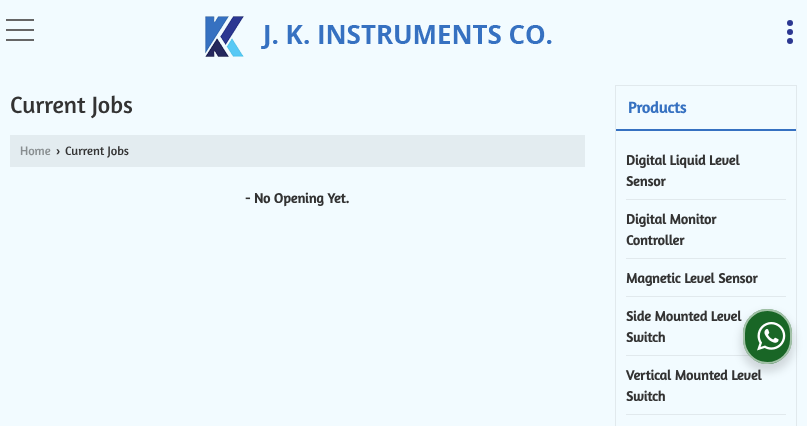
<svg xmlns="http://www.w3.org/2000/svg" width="807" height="426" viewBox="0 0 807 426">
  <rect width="100%" height="100%" fill="rgb(242,251,255)"/>
  <image x="205" y="16" width="347" height="41" href="pic1.png"/>
  <rect x="6" y="29" width="28" height="2" fill="rgb(102,102,102)"/>
  <rect x="6" y="19" width="28" height="2" fill="rgb(102,102,102)"/>
  <rect x="6" y="39" width="28" height="2" fill="rgb(102,102,102)"/>
  <circle cx="790" cy="32" r="3" fill="rgb(44,55,145)"/>
  <circle cx="790" cy="23" r="3" fill="rgb(44,55,145)"/>
  <circle cx="790" cy="41" r="3" fill="rgb(44,55,145)"/>
  <text x="10" y="113" font-family="Amaranth" font-size="24" fill="rgb(51,51,51)">Current Jobs</text>
  <rect x="10" y="135" width="575" height="32" fill="rgb(227,236,240)"/>
  <text x="20" y="155" font-family="Amaranth" font-size="12.5" fill="rgb(136,142,144)">Home</text>
  <text x="56" y="155" font-family="Liberation Sans" font-size="12.5" font-weight="bold" fill="rgb(51,51,51)">›</text>
  <text x="65" y="155" font-family="Amaranth" font-size="12.5" fill="rgb(51,51,51)">Current Jobs</text>
  <text x="245" y="203" font-family="Amaranth" font-size="14" font-weight="bold" fill="rgb(51,51,51)">- No Opening Yet.</text>
  <rect x="615.5" y="85.5" width="181" height="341" fill="none" stroke="rgb(225,233,237)"/>
  <rect x="616" y="129" width="180" height="2" fill="rgb(54,113,193)"/>
  <text x="628" y="113" font-family="Amaranth" font-size="16" font-weight="bold" fill="rgb(54,113,193)">Products</text>
  <rect x="626" y="199" width="160" height="1" fill="rgb(225,233,237)"/>
  <g font-family="Amaranth" font-size="14" font-weight="bold" fill="rgb(51,51,51)">
    <text>
      <tspan x="626" y="165">Digital Liquid Level</tspan>
      <tspan x="626" y="186">Sensor</tspan>
    </text>
  </g>
  <rect x="626" y="258" width="160" height="1" fill="rgb(225,233,237)"/>
  <g font-family="Amaranth" font-size="14" font-weight="bold" fill="rgb(51,51,51)">
    <text>
      <tspan x="626" y="224">Digital Monitor</tspan>
      <tspan x="626" y="245">Controller</tspan>
    </text>
  </g>
  <rect x="626" y="296" width="160" height="1" fill="rgb(225,233,237)"/>
  <text x="626" y="283" font-family="Amaranth" font-size="14" font-weight="bold" fill="rgb(51,51,51)">Magnetic Level Sensor</text>
  <rect x="626" y="355" width="160" height="1" fill="rgb(225,233,237)"/>
  <g font-family="Amaranth" font-size="14" font-weight="bold" fill="rgb(51,51,51)">
    <text>
      <tspan x="626" y="321">Side Mounted Level</tspan>
      <tspan x="626" y="342">Switch</tspan>
    </text>
  </g>
  <rect x="626" y="414" width="160" height="1" fill="rgb(225,233,237)"/>
  <g font-family="Amaranth" font-size="14" font-weight="bold" fill="rgb(51,51,51)">
    <text>
      <tspan x="626" y="380">Vertical Mounted Level</tspan>
      <tspan x="626" y="401">Switch</tspan>
    </text>
  </g>
  <rect x="741" y="313" width="53" height="59" rx="26.5" fill="rgba(0,0,0,0.14)" filter="blur(4px)"/>
  <rect x="743" y="309" width="49" height="55" rx="24.5" fill="rgb(25,102,38)"/>
  <rect x="744" y="310" width="47" height="53" rx="23.5" fill="none" stroke="rgba(255,255,255,0.6)" stroke-width="2"/>
  <image x="757" y="322" width="29" height="29" href="pic2.png"/>
</svg>
